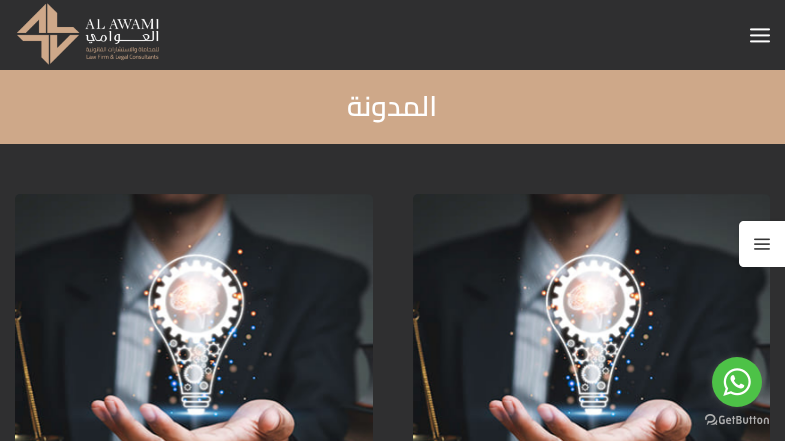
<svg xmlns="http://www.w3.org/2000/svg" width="785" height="441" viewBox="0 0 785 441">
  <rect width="100%" height="100%" fill="rgb(47,47,48)"/>
  <image x="750" y="28" width="20" height="15" href="pic1.png"/>
  <image x="17" y="3" width="142" height="62" href="pic2.png"/>
  <rect x="0" y="70" width="785" height="74" fill="rgb(206,168,137)"/>
  <text x="437" y="116" font-family="Cairo" font-size="28" font-weight="600" direction="rtl" fill="rgb(255,255,255)">المدونة</text>
  <image x="413" y="194" width="357" height="247" href="pic3.png"/>
  <image x="15" y="194" width="358" height="247" href="pic4.png"/>
  <rect x="739" y="221" width="46" height="46" rx="5" fill="rgba(0,0,0,0.15)" filter="blur(1.5px)"/>
  <path d="M744 221H785V267H744C741 267 739 265 739 262V226C739 223 741 221 744 221Z" fill="rgb(255,255,255)"/>
  <image x="754" y="238" width="16" height="12" href="pic5.png"/>
  <image x="705" y="414" width="64" height="11" href="pic7.png"/>
  <rect x="712" y="358" width="50" height="50" rx="25" fill="rgba(136,136,136,0.4)" filter="blur(3.5px)"/>
  <circle cx="737" cy="382" r="25" fill="rgb(77,194,71)"/>
  <image x="723" y="368" width="28" height="28" href="pic6.png"/>
</svg>
